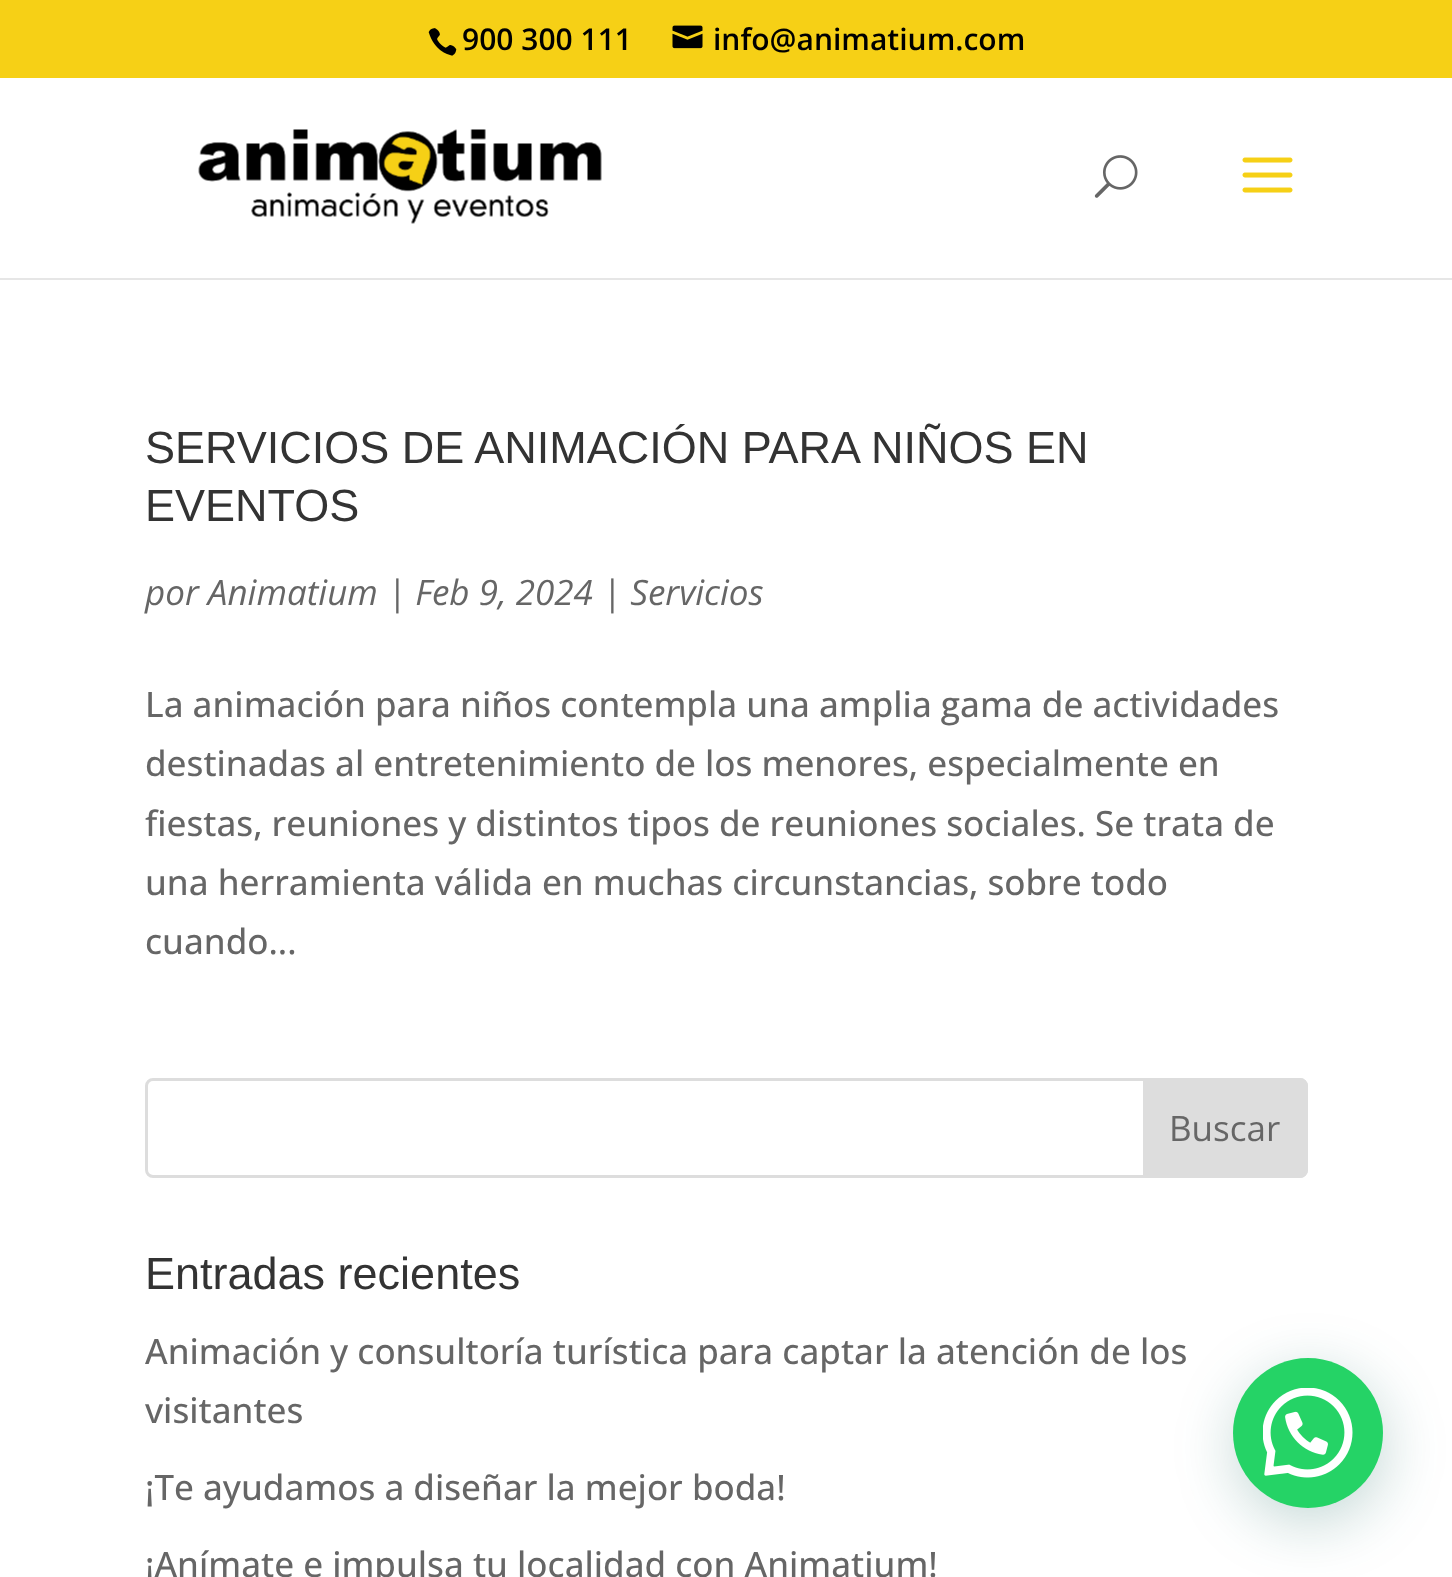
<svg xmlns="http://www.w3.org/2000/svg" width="1452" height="1577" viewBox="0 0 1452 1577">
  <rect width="100%" height="100%" fill="rgb(255,255,255)"/>
  <rect x="0" y="0" width="1452" height="78" fill="rgb(246,208,22)"/>
  <image x="428" y="28" width="29" height="28" href="pic1.png"/>
  <text x="462" y="50" font-family="Open Sans" font-size="30" font-weight="600" fill="rgb(0,0,0)">900 300 111</text>
  <image x="672" y="25" width="31" height="24" href="pic2.png"/>
  <text x="713" y="50" font-family="Open Sans" font-size="30" font-weight="600" fill="rgb(0,0,0)">info@animatium.com</text>
  <path d="M0 278V280H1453V80H1452V278Z" fill="rgb(230,230,230)"/>
  <image x="198" y="129" width="404" height="95" href="pic3.png"/>
  <image x="1094" y="155" width="44" height="43" href="pic4.png"/>
  <image x="1242" y="157" width="51" height="36" href="pic5.png"/>
  <g font-family="Liberation Sans" font-size="45" fill="rgb(51,51,51)">
    <text>
      <tspan x="145" y="463">SERVICIOS DE ANIMACIÓN PARA NIÑOS EN</tspan>
      <tspan x="145" y="521">EVENTOS</tspan>
    </text>
  </g>
  <text x="145" y="605" font-family="Open Sans" font-size="35" font-style="italic" fill="rgb(102,102,102)">por Animatium | Feb 9, 2024 | Servicios</text>
  <g font-family="Open Sans" font-size="35" font-weight="500" fill="rgb(102,102,102)">
    <text>
      <tspan x="145" y="717">La animación para niños contempla una amplia gama de actividades</tspan>
      <tspan x="145" y="776">destinadas al entretenimiento de los menores, especialmente en</tspan>
      <tspan x="145" y="836">fiestas, reuniones y distintos tipos de reuniones sociales. Se trata de</tspan>
      <tspan x="145" y="895">una herramienta válida en muchas circunstancias, sobre todo</tspan>
      <tspan x="145" y="954">cuando...</tspan>
    </text>
  </g>
  <rect x="146.5" y="1079.5" width="1160" height="97" rx="6.5" fill="none" stroke="rgb(221,221,221)" stroke-width="3"/>
  <path d="M1144.5 1079.5H1300C1303.5 1079.5 1306.5 1082.5 1306.5 1086V1170C1306.5 1173.5 1303.5 1176.5 1300 1176.5H1144.5Z" fill="rgb(221,221,221)" stroke="rgb(221,221,221)" stroke-width="3"/>
  <text x="1169" y="1141" font-family="Open Sans" font-size="35" fill="rgb(102,102,102)">Buscar</text>
  <text x="145" y="1289" font-family="Liberation Sans" font-size="45" fill="rgb(51,51,51)">Entradas recientes</text>
  <g font-family="Open Sans" font-size="35" font-weight="500" fill="rgb(102,102,102)">
    <text>
      <tspan x="145" y="1364">Animación y consultoría turística para captar la atención de los</tspan>
      <tspan x="145" y="1423">visitantes</tspan>
    </text>
    <text x="145" y="1500">¡Te ayudamos a diseñar la mejor boda!</text>
    <text x="145" y="1577">¡Anímate e impulsa tu localidad con Animatium!</text>
  </g>
  <rect x="1235" y="1373" width="150" height="150" rx="75" fill="rgba(7,94,84,0.24)" filter="blur(30px)"/>
  <circle cx="1308" cy="1433" r="75" fill="rgb(37,211,102)"/>
  <image x="1263" y="1388" width="90" height="90" href="pic6.png"/>
</svg>
